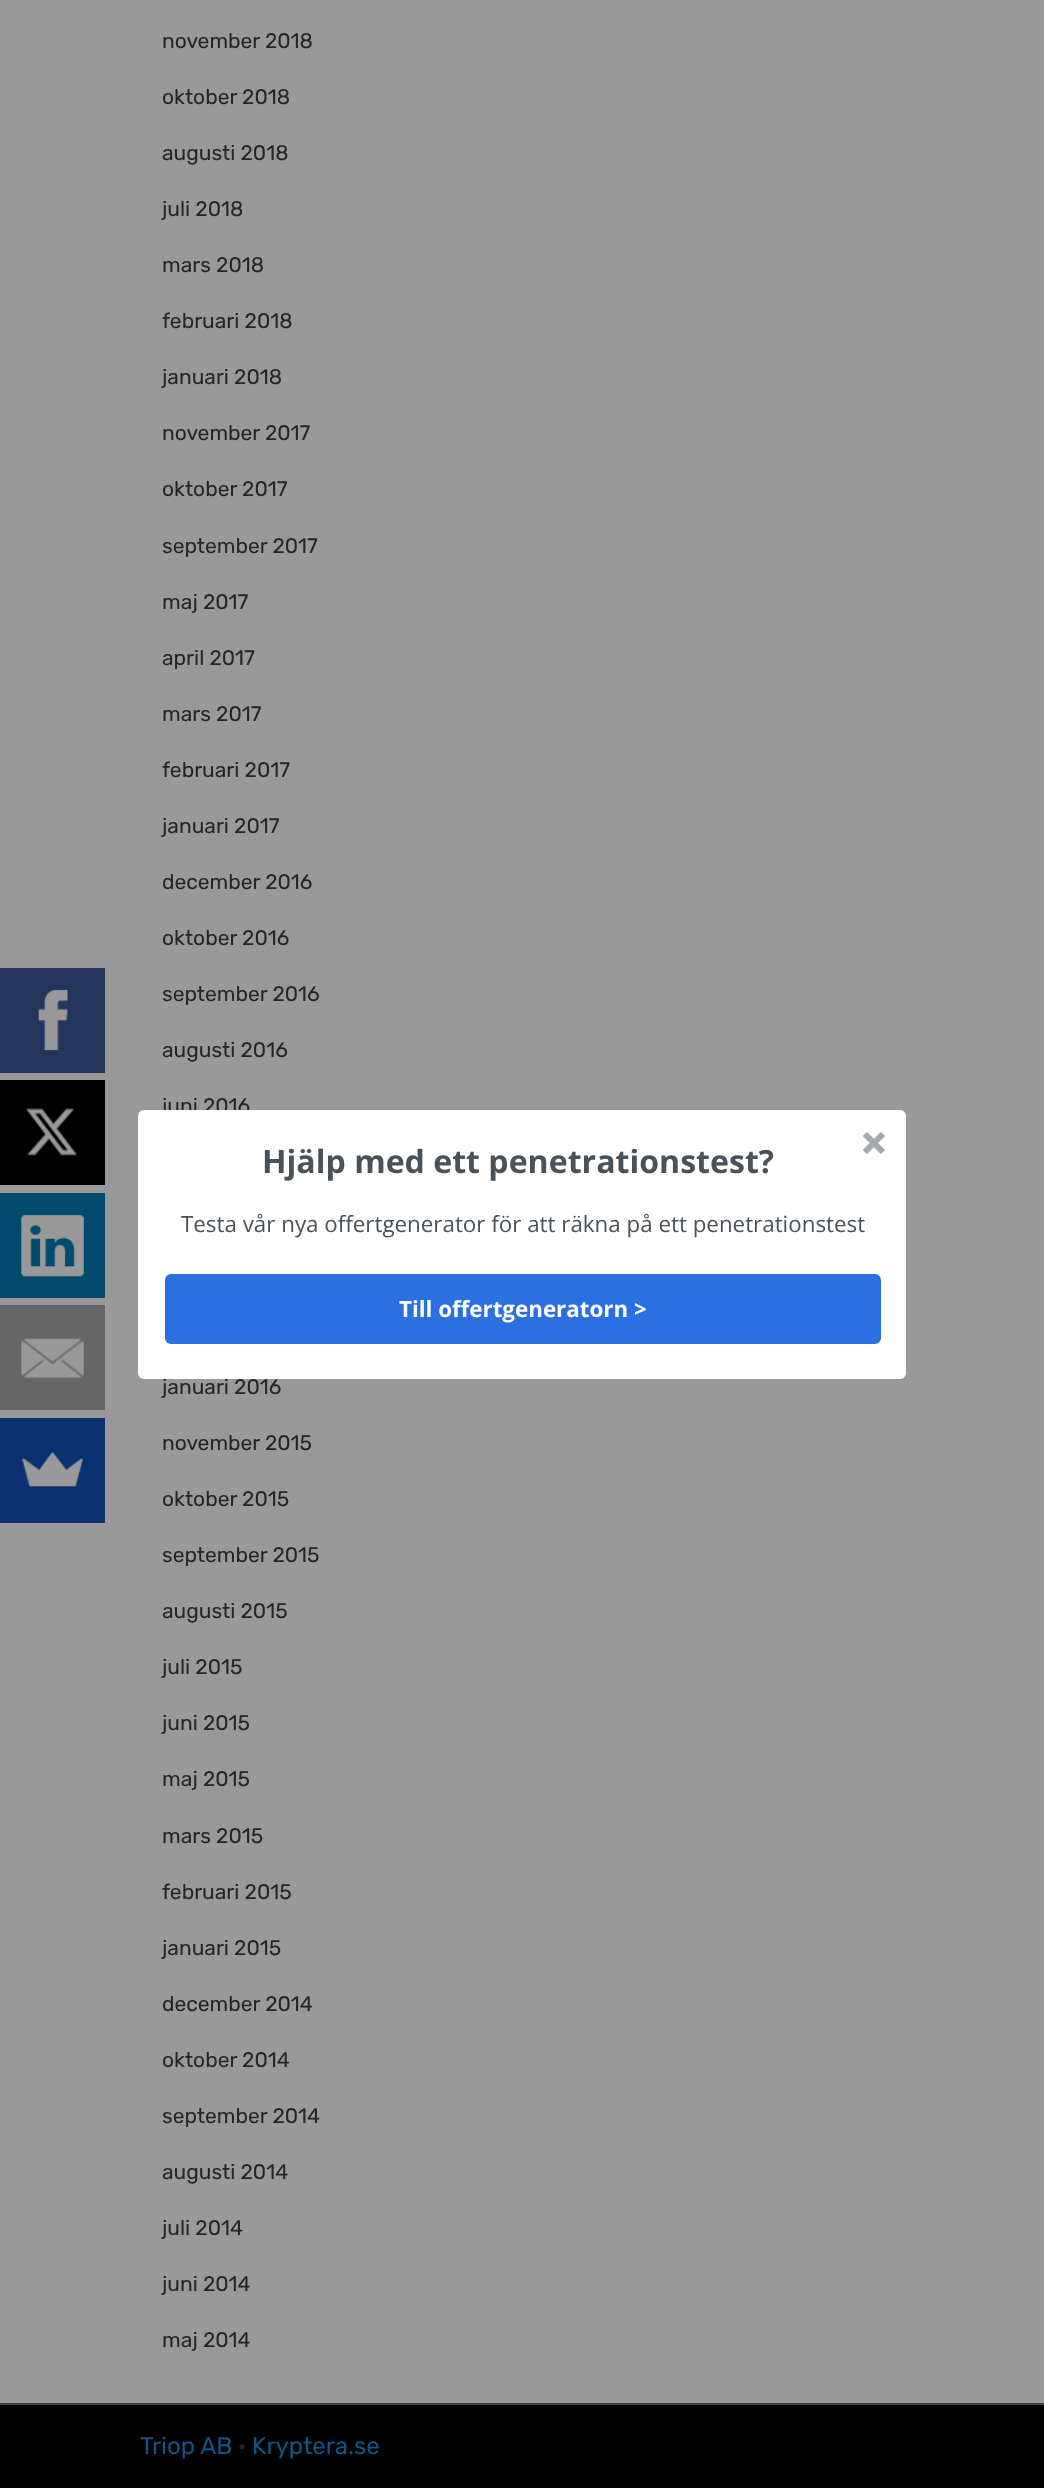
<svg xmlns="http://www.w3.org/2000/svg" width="1044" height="2488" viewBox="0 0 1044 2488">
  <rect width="100%" height="100%" fill="rgb(153,153,153)"/>
  <rect x="0" y="968" width="105" height="105" fill="rgb(35,53,91)"/>
  <image x="38" y="989" width="30" height="62" href="pic1.png"/>
  <rect x="0" y="1080" width="105" height="105" fill="rgb(0,0,0)"/>
  <image x="26" y="1108" width="51" height="48" href="pic2.png"/>
  <rect x="0" y="1193" width="105" height="105" fill="rgb(0,74,109)"/>
  <image x="21" y="1214" width="63" height="63" href="pic3.png"/>
  <rect x="0" y="1305" width="105" height="105" fill="rgb(102,102,102)"/>
  <image x="21" y="1338" width="63" height="41" href="pic4.png"/>
  <rect x="0" y="1418" width="105" height="105" fill="rgb(9,49,112)"/>
  <image x="22" y="1452" width="61" height="35" href="pic5.png"/>
  <g font-family="Rubik" font-size="21" fill="rgb(37,37,37)">
    <text x="162" y="48">november 2018</text>
    <text x="162" y="104">oktober 2018</text>
    <text x="162" y="160">augusti 2018</text>
    <text x="162" y="216">juli 2018</text>
    <text x="162" y="272">mars 2018</text>
    <text x="162" y="328">februari 2018</text>
    <text x="162" y="384">januari 2018</text>
    <text x="162" y="440">november 2017</text>
    <text x="162" y="496">oktober 2017</text>
    <text x="162" y="553">september 2017</text>
    <text x="162" y="609">maj 2017</text>
    <text x="162" y="665">april 2017</text>
    <text x="162" y="721">mars 2017</text>
    <text x="162" y="777">februari 2017</text>
    <text x="162" y="833">januari 2017</text>
    <text x="162" y="889">december 2016</text>
    <text x="162" y="945">oktober 2016</text>
    <text x="162" y="1001">september 2016</text>
    <text x="162" y="1057">augusti 2016</text>
    <text x="162" y="1113">juni 2016</text>
    <text x="162" y="1394">januari 2016</text>
    <text x="162" y="1450">november 2015</text>
    <text x="162" y="1506">oktober 2015</text>
    <text x="162" y="1562">september 2015</text>
    <text x="162" y="1618">augusti 2015</text>
    <text x="162" y="1674">juli 2015</text>
    <text x="162" y="1730">juni 2015</text>
    <text x="162" y="1786">maj 2015</text>
    <text x="162" y="1843">mars 2015</text>
    <text x="162" y="1899">februari 2015</text>
    <text x="162" y="1955">januari 2015</text>
    <text x="162" y="2011">december 2014</text>
    <text x="162" y="2067">oktober 2014</text>
    <text x="162" y="2123">september 2014</text>
    <text x="162" y="2179">augusti 2014</text>
    <text x="162" y="2235">juli 2014</text>
    <text x="162" y="2291">juni 2014</text>
    <text x="162" y="2347">maj 2014</text>
  </g>
  <rect x="0" y="2405" width="1044" height="83" fill="rgb(1,1,1)"/>
  <rect x="0" y="2403" width="1044" height="2" fill="rgb(61,61,61)"/>
  <text x="140" y="2454" font-family="Rubik" font-size="24" fill="rgb(19,85,137)">Triop AB</text>
  <text x="238" y="2454" font-family="Rubik" font-size="24" fill="rgb(37,37,37)">·</text>
  <text x="252" y="2454" font-family="Rubik" font-size="24" fill="rgb(19,85,137)">Kryptera.se</text>
  <rect x="138" y="1110" width="768" height="269" rx="6" fill="rgb(255,255,255)"/>
  <image x="863" y="1132" width="22" height="22" href="pic6.png"/>
  <text x="262" y="1173" font-family="Open Sans" font-size="32.1" font-weight="bold" fill="rgb(73,82,89)">Hjälp med ett penetrationstest?</text>
  <text x="181" y="1232" font-family="Open Sans" font-size="22.35" fill="rgb(73,82,89)">Testa vår nya offertgenerator för att räkna på ett penetrationstest</text>
  <rect x="165" y="1274" width="716" height="70" rx="6" fill="rgb(42,112,224)"/>
  <text x="399" y="1317" font-family="Open Sans" font-size="22.35" font-weight="bold" fill="rgb(255,255,255)">Till offertgeneratorn &gt;</text>
</svg>
